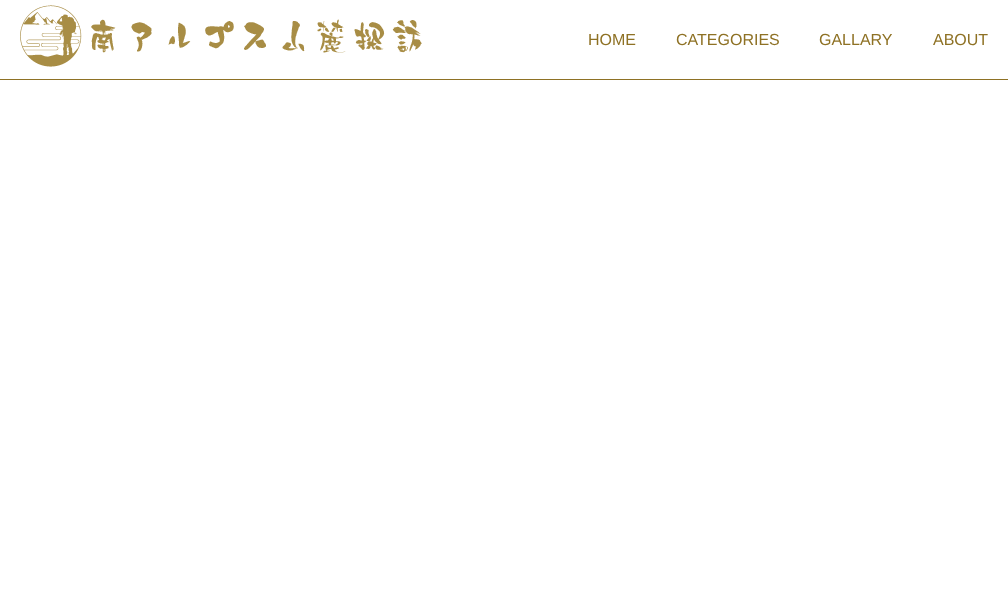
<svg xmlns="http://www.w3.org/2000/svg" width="1008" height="606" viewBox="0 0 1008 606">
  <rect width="100%" height="100%" fill="rgb(255,255,255)"/>
  <rect x="0" y="79" width="1008" height="1" fill="rgb(142,113,36)"/>
  <image x="20" y="5" width="402" height="62" href="pic1.png"/>
  <g font-family="Liberation Sans" font-size="16" fill="rgb(142,113,36)">
    <text x="588" y="45">HOME</text>
    <text x="676" y="45">CATEGORIES</text>
    <text x="819" y="45">GALLARY</text>
    <text x="933" y="45">ABOUT</text>
  </g>
</svg>
